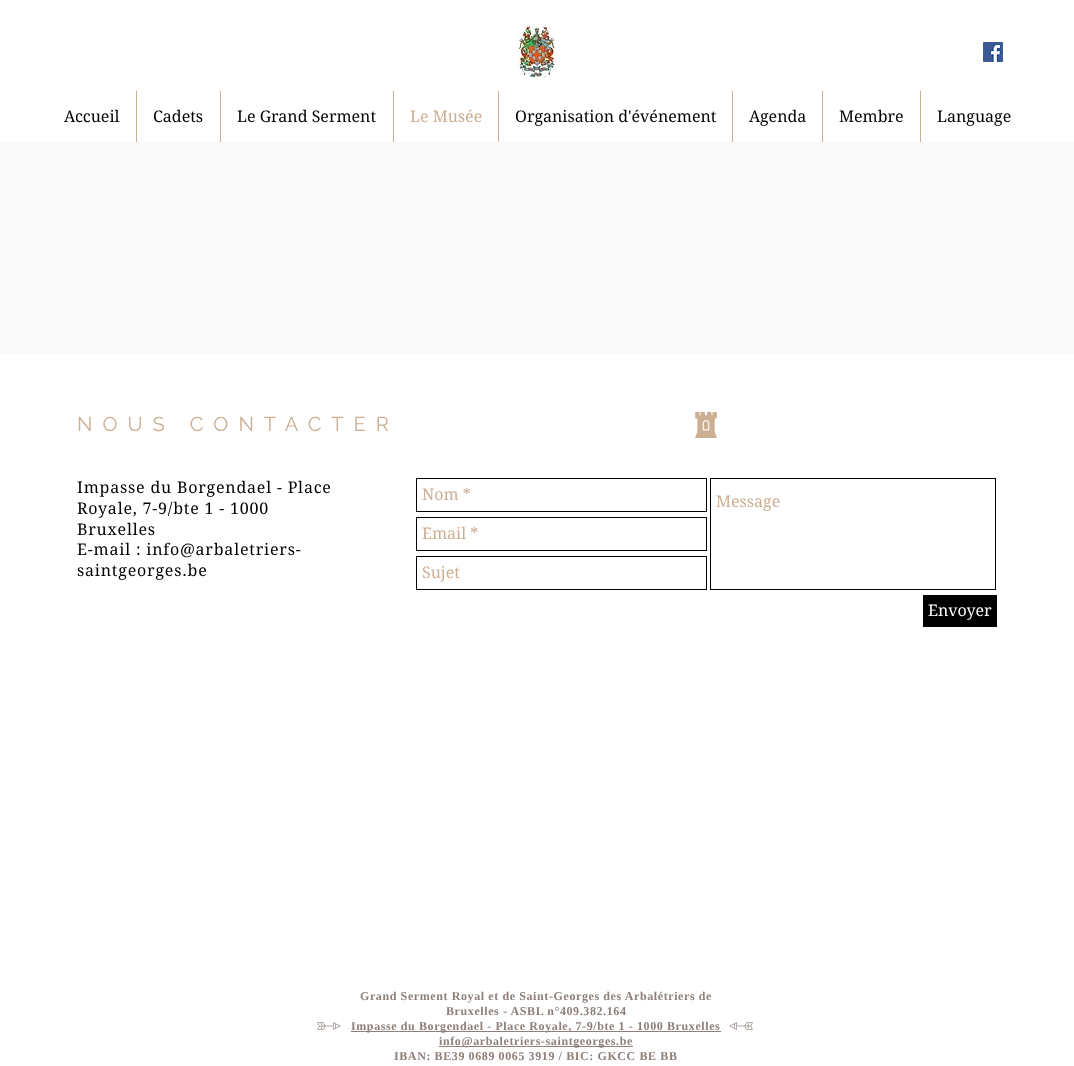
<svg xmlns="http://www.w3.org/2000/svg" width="1074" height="1066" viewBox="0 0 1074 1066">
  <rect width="100%" height="100%" fill="rgb(255,255,255)"/>
  <image x="517" y="26" width="40" height="51" href="pic1.png"/>
  <image x="983" y="42" width="20" height="20" href="pic2.png"/>
  <text x="64" y="122" font-family="'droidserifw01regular'" font-size="16" fill="rgb(0,0,0)">Accueil</text>
  <rect x="136" y="91" width="1" height="51" fill="rgb(204,174,147)"/>
  <text x="153" y="122" font-family="'droidserifw01regular'" font-size="16" fill="rgb(0,0,0)">Cadets</text>
  <rect x="220" y="91" width="1" height="51" fill="rgb(204,174,147)"/>
  <text x="237" y="122" font-family="'droidserifw01regular'" font-size="16" fill="rgb(0,0,0)">Le Grand Serment</text>
  <rect x="393" y="91" width="1" height="51" fill="rgb(204,174,147)"/>
  <text x="410" y="122" font-family="'droidserifw01regular'" font-size="16" fill="rgb(204,174,147)">Le Musée</text>
  <rect x="498" y="91" width="1" height="51" fill="rgb(204,174,147)"/>
  <text x="515" y="122" font-family="'droidserifw01regular'" font-size="16" fill="rgb(0,0,0)">Organisation d'événement</text>
  <rect x="732" y="91" width="1" height="51" fill="rgb(204,174,147)"/>
  <text x="749" y="122" font-family="'droidserifw01regular'" font-size="16" fill="rgb(0,0,0)">Agenda</text>
  <rect x="822" y="91" width="1" height="51" fill="rgb(204,174,147)"/>
  <text x="839" y="122" font-family="'droidserifw01regular'" font-size="16" fill="rgb(0,0,0)">Membre</text>
  <rect x="920" y="91" width="1" height="51" fill="rgb(204,174,147)"/>
  <text x="937" y="122" font-family="'droidserifw01regular'" font-size="16" fill="rgb(0,0,0)">Language</text>
  <rect x="0" y="142" width="1074" height="212" fill="rgb(250,250,250)"/>
  <text x="77" y="431" font-family="Raleway" font-size="20" letter-spacing="10" fill="rgb(204,174,147)">NOUS CONTACTER</text>
  <image x="695" y="412" width="22" height="26" href="pic3.png"/>
  <g font-family="'droidserifw01regular'" font-size="16" letter-spacing="0.8" fill="rgb(0,0,0)">
    <text>
      <tspan x="77" y="493">Impasse du Borgendael - Place</tspan>
      <tspan x="77" y="514">Royale, 7-9/bte 1 - 1000</tspan>
      <tspan x="77" y="535">Bruxelles</tspan>
      <tspan x="77" y="555">E-mail : info@arbaletriers-</tspan>
      <tspan x="77" y="576">saintgeorges.be</tspan>
    </text>
  </g>
  <rect x="416.5" y="478.5" width="290" height="33" fill="none" stroke="rgb(0,0,0)"/>
  <text x="422" y="500" font-family="'droidserifw01regular'" font-size="16" fill="rgb(204,174,147)">Nom *</text>
  <rect x="710.5" y="478.5" width="285" height="111" fill="none" stroke="rgb(0,0,0)"/>
  <text x="716" y="507" font-family="'droidserifw01regular'" font-size="16" fill="rgb(204,174,147)">Message</text>
  <rect x="416.5" y="517.5" width="290" height="33" fill="none" stroke="rgb(0,0,0)"/>
  <text x="422" y="539" font-family="'droidserifw01regular'" font-size="16" fill="rgb(204,174,147)">Email *</text>
  <rect x="416.5" y="556.5" width="290" height="33" fill="none" stroke="rgb(0,0,0)"/>
  <text x="422" y="578" font-family="'droidserifw01regular'" font-size="16" fill="rgb(204,174,147)">Sujet</text>
  <rect x="923" y="595" width="74" height="32" fill="rgb(0,0,0)"/>
  <text x="928" y="616" font-family="'droidserifw01regular'" font-size="16" fill="rgb(255,255,255)">Envoyer</text>
  <image x="317" y="1022" width="24" height="8" href="pic4.png"/>
  <g font-family="Liberation Serif" font-size="12" font-weight="bold" letter-spacing="0.6" fill="rgb(141,127,121)">
    <text x="360" y="1000">Grand Serment Royal et de Saint-Georges des Arbalétriers de</text>
    <text x="446" y="1015">Bruxelles - ASBL n°409.382.164</text>
  </g>
  <rect x="351" y="1031" width="370" height="1" fill="rgb(141,127,121)"/>
  <text x="351" y="1030" font-family="Liberation Serif" font-size="12" font-weight="bold" letter-spacing="0.6" fill="rgb(141,127,121)">Impasse du Borgendael - Place Royale, 7-9/bte 1 - 1000 Bruxelles</text>
  <rect x="439" y="1046" width="194" height="1" fill="rgb(141,127,121)"/>
  <g font-family="Liberation Serif" font-size="12" font-weight="bold" letter-spacing="0.6" fill="rgb(141,127,121)">
    <text x="439" y="1045">info@arbaletriers-saintgeorges.be</text>
    <text x="394" y="1060">IBAN: BE39 0689 0065 3919 / BIC: GKCC BE BB</text>
  </g>
  <image x="729" y="1022" width="24" height="8" href="pic5.png"/>
</svg>
